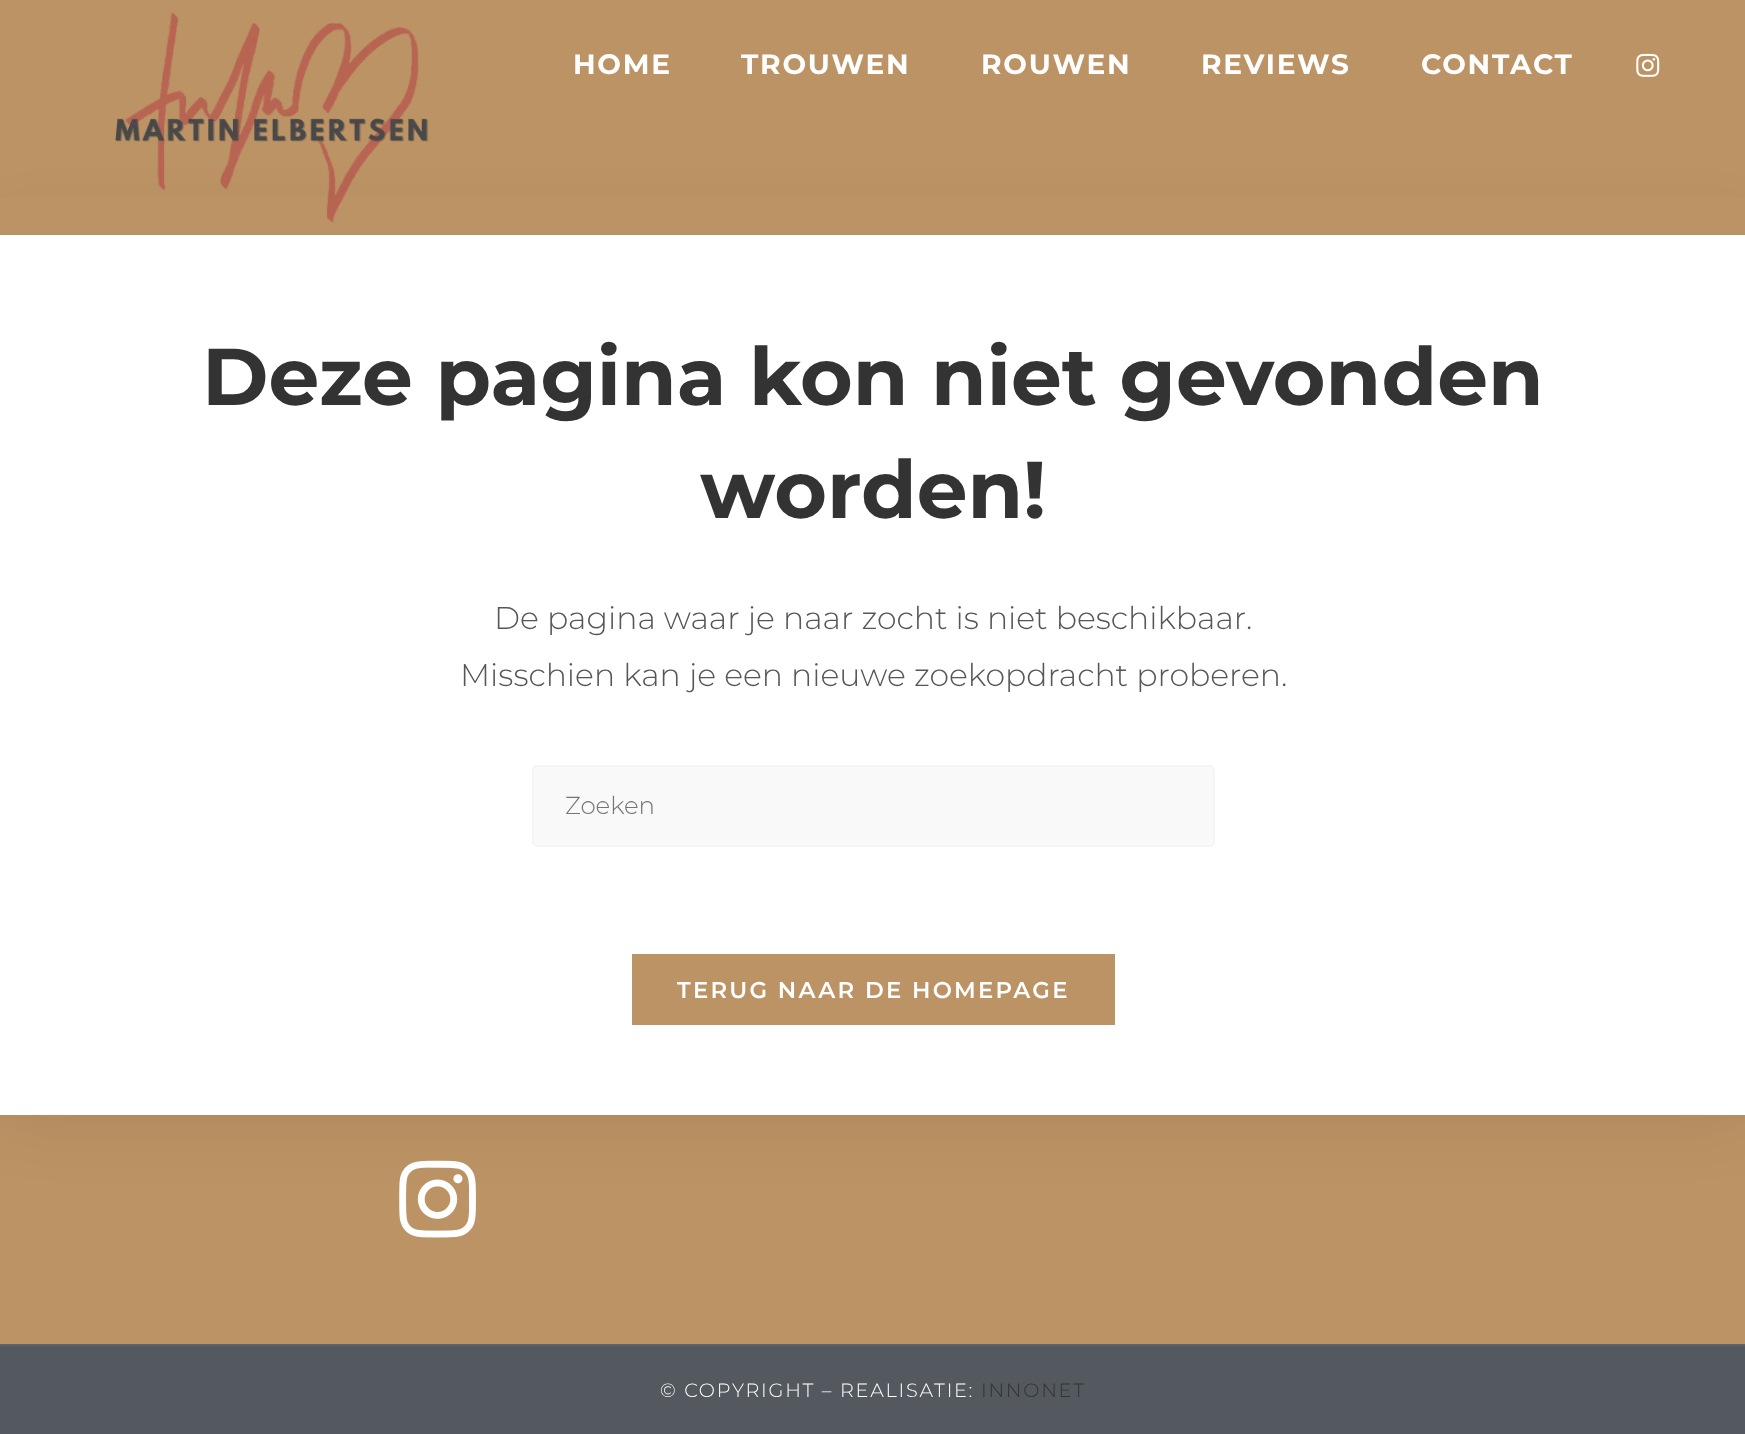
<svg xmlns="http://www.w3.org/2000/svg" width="1745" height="1434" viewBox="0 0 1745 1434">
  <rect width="100%" height="100%" fill="rgb(188,147,100)"/>
  <image x="399" y="1160" width="77" height="78" href="pic3.png"/>
  <rect x="0" y="235" width="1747" height="880" fill="rgba(0,0,0,0.1)" filter="blur(35px)"/>
  <rect x="0" y="197" width="1745" height="38" fill="rgb(188,147,100)"/>
  <image x="115" y="12" width="314" height="211" href="pic1.png"/>
  <g font-family="Montserrat" font-size="28" font-weight="bold" letter-spacing="1.75" fill="rgb(255,255,255)">
    <text x="573" y="74">HOME</text>
    <text x="741" y="74">TROUWEN</text>
    <text x="981" y="74">ROUWEN</text>
    <text x="1201" y="74">REVIEWS</text>
    <text x="1421" y="74">CONTACT</text>
  </g>
  <image x="1636" y="53" width="24" height="24" href="pic2.png"/>
  <rect x="0" y="235" width="1745" height="880" fill="rgb(255,255,255)"/>
  <g font-family="Montserrat" font-size="80.5" font-weight="bold" fill="rgb(51,51,51)">
    <text x="202" y="405">Deze pagina kon niet gevonden</text>
    <text x="700" y="518">worden!</text>
  </g>
  <g font-family="Montserrat" font-size="31.5" font-weight="300" fill="rgb(86,86,86)">
    <text x="494" y="629">De pagina waar je naar zocht is niet beschikbaar.</text>
    <text x="460" y="686">Misschien kan je een nieuwe zoekopdracht proberen.</text>
  </g>
  <rect x="533" y="766" width="681" height="80" rx="4" fill="rgb(249,249,249)" stroke="rgb(245,245,245)" stroke-width="2"/>
  <text x="565" y="814" font-family="Montserrat" font-size="24.5" font-weight="300" fill="rgb(117,117,117)">Zoeken</text>
  <rect x="632" y="954" width="483" height="71" fill="rgb(188,147,100)"/>
  <text x="677" y="998" font-family="Montserrat" font-size="22.75" font-weight="600" letter-spacing="2.25" fill="rgb(255,255,255)">TERUG NAAR DE HOMEPAGE</text>
  <rect x="0" y="1346" width="1745" height="88" fill="rgb(84,89,95)"/>
  <rect x="0" y="1344" width="1745" height="2" fill="rgb(94,99,105)"/>
  <text x="660" y="1397" font-family="Montserrat" font-size="19.25" font-weight="300" letter-spacing="1.75" fill="rgb(255,255,255)">© COPYRIGHT – REALISATIE:</text>
  <text x="981" y="1397" font-family="Montserrat" font-size="19.25" font-weight="300" letter-spacing="1.75" fill="rgb(51,51,51)">INNONET</text>
</svg>
